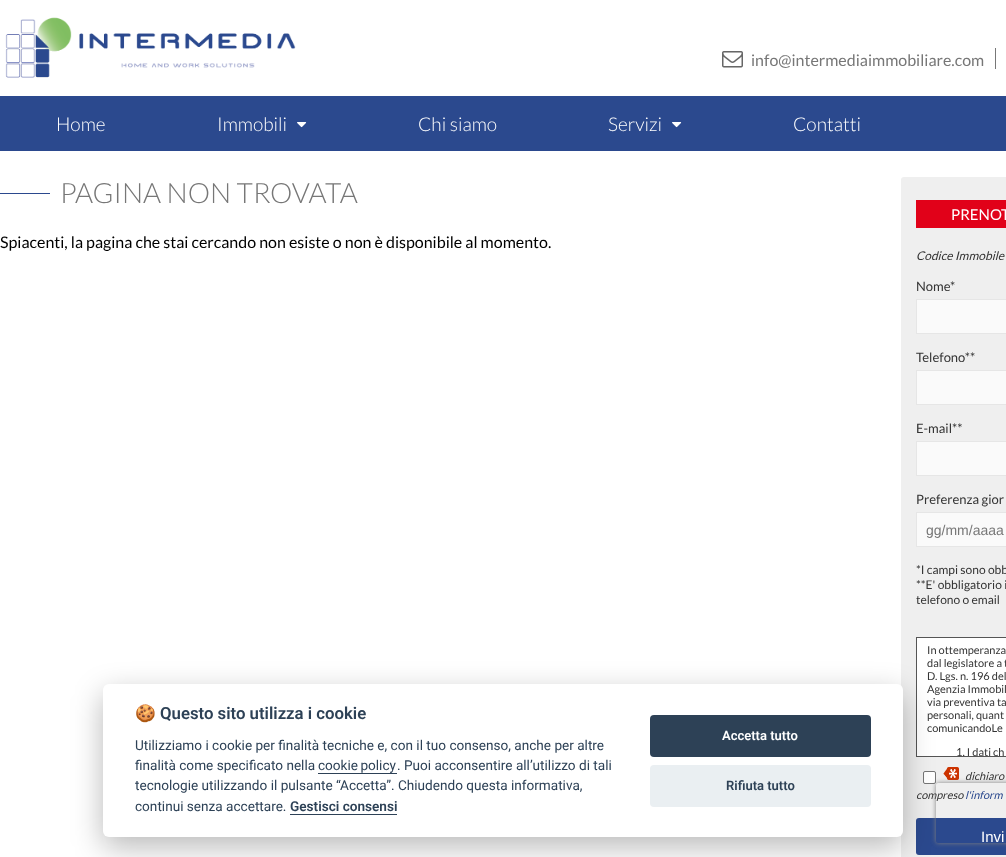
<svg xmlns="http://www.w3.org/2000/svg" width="1006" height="857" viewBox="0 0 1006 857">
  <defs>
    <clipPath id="clip1"><path d="M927 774H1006V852H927ZM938 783H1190C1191 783 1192 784 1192 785V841C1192 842 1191 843 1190 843H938C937 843 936 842 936 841V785C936 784 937 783 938 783Z" clip-rule="evenodd"/></clipPath>
  </defs>
  <rect width="100%" height="100%" fill="rgb(255,255,255)"/>
  <image x="5" y="17" width="291" height="61" href="pic1.png"/>
  <rect x="995" y="48" width="1" height="21" fill="rgb(119,119,119)"/>
  <image x="722" y="51" width="21" height="17" href="pic2.png"/>
  <text x="751" y="66" font-family="Lato" font-size="16" fill="rgb(119,119,119)">info@intermediaimmobiliare.com</text>
  <rect x="0" y="96" width="1006" height="55" fill="rgb(43,73,142)"/>
  <g font-family="Lato" font-size="19" font-weight="300" fill="rgb(255,255,255)">
    <text x="56" y="131">Home</text>
    <text x="217" y="131">Immobili</text>
  </g>
  <image x="297" y="122" width="10" height="6" href="pic3.png"/>
  <g font-family="Lato" font-size="19" font-weight="300" fill="rgb(255,255,255)">
    <text x="418" y="131">Chi siamo</text>
    <text x="608" y="131">Servizi</text>
  </g>
  <image x="672" y="122" width="10" height="6" href="pic3.png"/>
  <text x="793" y="131" font-family="Lato" font-size="19" font-weight="300" fill="rgb(255,255,255)">Contatti</text>
  <rect x="0" y="193" width="50" height="1" fill="rgb(43,73,142)"/>
  <text x="60" y="203" font-family="Lato" font-size="28" font-weight="300" fill="rgb(119,119,119)">PAGINA NON TROVATA</text>
  <text x="0" y="248" font-family="Lato" font-size="16" fill="rgb(0,0,0)">Spiacenti, la pagina che stai cercando non esiste o non è disponibile al momento.</text>
  <rect x="901" y="177" width="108" height="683" rx="3" fill="rgb(239,239,239)"/>
  <rect x="916" y="200" width="90" height="28" fill="rgb(225,1,25)"/>
  <text x="951" y="220" font-family="Lato" font-size="15" fill="rgb(255,255,255)">PRENOT</text>
  <text x="916" y="260" font-family="Lato" font-size="12" font-style="italic" fill="rgb(52,52,52)">Codice Immobile</text>
  <text x="916" y="291" font-family="Lato" font-size="13" fill="rgb(52,52,52)">Nome*</text>
  <rect x="916.5" y="299.5" width="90" height="34" fill="rgb(250,250,250)" stroke="rgb(230,230,230)"/>
  <text x="916" y="362" font-family="Lato" font-size="13" fill="rgb(52,52,52)">Telefono**</text>
  <rect x="916.5" y="370.5" width="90" height="34" fill="rgb(250,250,250)" stroke="rgb(230,230,230)"/>
  <text x="916" y="433" font-family="Lato" font-size="13" fill="rgb(52,52,52)">E-mail**</text>
  <rect x="916.5" y="441.5" width="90" height="34" fill="rgb(250,250,250)" stroke="rgb(230,230,230)"/>
  <text x="916" y="504" font-family="Lato" font-size="13" fill="rgb(52,52,52)">Preferenza gior</text>
  <rect x="916.5" y="512.5" width="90" height="34" fill="rgb(250,250,250)" stroke="rgb(230,230,230)"/>
  <text x="926" y="535" font-family="Liberation Sans" font-size="14" fill="rgb(119,119,119)">gg/mm/aaaa</text>
  <g font-family="Lato" font-size="12" fill="rgb(52,52,52)">
    <text>
      <tspan x="916" y="574">*I campi sono obb</tspan>
      <tspan x="916" y="589">**E' obbligatorio i</tspan>
      <tspan x="916" y="604">telefono o email</tspan>
    </text>
  </g>
  <rect x="916.5" y="637.5" width="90" height="119" fill="rgb(255,255,255)" stroke="rgb(85,85,85)"/>
  <g font-family="Lato" font-size="11" fill="rgb(52,52,52)">
    <text>
      <tspan x="927" y="654">In ottemperanza</tspan>
      <tspan x="927" y="667">dal legislatore a t</tspan>
      <tspan x="927" y="680">D. Lgs. n. 196 del</tspan>
      <tspan x="927" y="693">Agenzia Immobil</tspan>
      <tspan x="927" y="706">via preventiva ta</tspan>
      <tspan x="927" y="719">personali, quant</tspan>
      <tspan x="927" y="732">comunicandoLe</tspan>
    </text>
    <text x="956" y="756">1. I dati ch</text>
  </g>
  <rect x="923.5" y="771.5" width="12" height="12" rx="1.5" fill="rgb(255,255,255)" stroke="rgb(118,118,118)"/>
  <image x="943" y="767" width="16" height="13" href="pic4.png"/>
  <g font-family="Lato" font-size="11" font-style="italic" fill="rgb(52,52,52)">
    <text x="965" y="780">dichiaro</text>
    <text x="916" y="799">compreso</text>
  </g>
  <text x="965" y="799" font-family="Lato" font-size="11" font-style="italic" fill="rgb(43,73,142)">l'inform</text>
  <rect x="916" y="818" width="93" height="37" rx="3" fill="rgb(43,73,142)"/>
  <text x="981" y="842" font-family="Liberation Sans" font-size="15" fill="rgb(255,255,255)">Invi</text>
  <rect x="103" y="694" width="800" height="153" rx="6" fill="rgba(2,2,3,0.28)" filter="blur(15px)"/>
  <rect x="103" y="684" width="800" height="153" rx="6" fill="rgb(255,255,255)"/>
  <text x="135" y="719" font-family="Noto Color Emoji" font-size="16.75" font-weight="bold" fill="rgb(45,65,86)">🍪</text>
  <text x="160" y="719" font-family="Roboto" font-size="16.75" font-weight="600" fill="rgb(45,65,86)">Questo sito utilizza i cookie</text>
  <g font-family="Roboto" font-size="13.6" fill="rgb(45,65,86)">
    <text>
      <tspan x="135" y="750">Utilizziamo i cookie per finalità tecniche e, con il tuo consenso, anche per altre</tspan>
      <tspan x="135" y="770">finalità come specificato nella</tspan>
    </text>
    <text x="318" y="770" word-spacing="-1">cookie policy</text>
  </g>
  <rect x="318" y="773" width="79" height="1" fill="rgb(45,65,86)"/>
  <g font-family="Roboto" font-size="13.6" fill="rgb(45,65,86)">
    <text x="397" y="770">. Puoi acconsentire all’utilizzo di tali</text>
    <text>
      <tspan x="135" y="790">tecnologie utilizzando il pulsante “Accetta”. Chiudendo questa informativa,</tspan>
      <tspan x="135" y="811">continui senza accettare.</tspan>
    </text>
  </g>
  <text x="290" y="811" font-family="Roboto" font-size="13.6" font-weight="600" fill="rgb(45,65,86)">Gestisci consensi</text>
  <rect x="290" y="814" width="107" height="1" fill="rgb(45,65,86)"/>
  <rect x="650" y="715" width="221" height="42" rx="4" fill="rgb(45,65,86)"/>
  <text x="722" y="740" font-family="Roboto" font-size="13" font-weight="600" fill="rgb(255,255,255)">Accetta tutto</text>
  <rect x="650" y="765" width="221" height="42" rx="4" fill="rgb(234,239,242)"/>
  <text x="726" y="790" font-family="Roboto" font-size="13" font-weight="600" fill="rgb(45,65,86)">Rifiuta tutto</text>
  <g clip-path="url(#clip1)">
    <rect x="936" y="783" width="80" height="60" rx="2" fill="rgb(128,128,128)" filter="blur(2.5px)"/>
  </g>
</svg>
